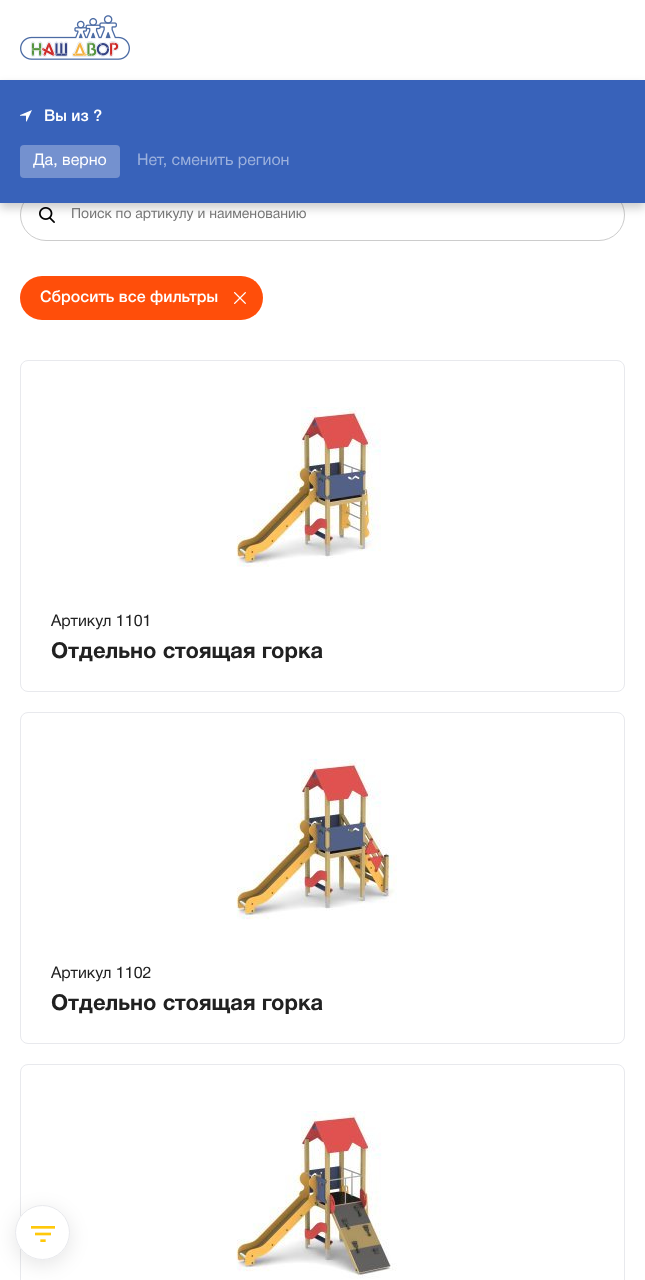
<svg xmlns="http://www.w3.org/2000/svg" width="645" height="1280" viewBox="0 0 645 1280">
  <rect width="100%" height="100%" fill="rgb(255,255,255)"/>
  <image x="20" y="15" width="110" height="45" href="pic1.png"/>
  <image x="39" y="207" width="16" height="16" href="pic3.png"/>
  <rect x="20.5" y="189.5" width="604" height="51" rx="25.5" fill="none" stroke="rgb(204,204,204)"/>
  <rect x="0" y="85" width="645" height="123" fill="rgba(0,0,0,0.2)" filter="blur(5px)"/>
  <rect x="0" y="80" width="645" height="123" fill="rgb(56,98,186)"/>
  <image x="20" y="110" width="12" height="12" href="pic2.png"/>
  <text x="44" y="121" font-family="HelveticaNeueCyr" font-size="16" font-weight="500" fill="rgb(255,255,255)">Вы из ?</text>
  <rect x="20" y="145" width="100" height="33" rx="4" fill="rgb(116,145,207)"/>
  <text x="33" y="165" font-family="HelveticaNeueCyr" font-size="16" fill="rgb(255,255,255)">Да, верно</text>
  <text x="137" y="165" font-family="HelveticaNeueCyr" font-size="16" fill="rgb(156,177,221)">Нет, сменить регион</text>
  <text x="71" y="218" font-family="HelveticaNeueCyr" font-size="14" fill="rgb(117,117,117)">Поиск по артикулу и наименованию</text>
  <rect x="20" y="276" width="243" height="44" rx="22" fill="rgb(255,78,10)"/>
  <text x="40" y="302" font-family="HelveticaNeueCyr" font-size="16" font-weight="500" fill="rgb(255,255,255)">Сбросить все фильтры</text>
  <image x="234" y="292" width="12" height="12" href="pic4.png"/>
  <rect x="20.5" y="360.5" width="604" height="331" rx="7.5" fill="none" stroke="rgb(232,233,237)"/>
  <image x="236" y="407" width="145" height="160" href="pic5.png"/>
  <text x="51" y="626" font-family="HelveticaNeueCyr" font-size="16" fill="rgb(33,33,33)">Артикул 1101</text>
  <text x="51" y="658" font-family="HelveticaNeueCyr" font-size="22" font-weight="bold" fill="rgb(33,33,33)">Отдельно стоящая горка</text>
  <rect x="20.5" y="712.5" width="604" height="331" rx="7.5" fill="none" stroke="rgb(232,233,237)"/>
  <image x="236" y="758" width="161" height="162" href="pic6.png"/>
  <text x="51" y="978" font-family="HelveticaNeueCyr" font-size="16" fill="rgb(33,33,33)">Артикул 1102</text>
  <text x="51" y="1010" font-family="HelveticaNeueCyr" font-size="22" font-weight="bold" fill="rgb(33,33,33)">Отдельно стоящая горка</text>
  <rect x="20.5" y="1064.5" width="604" height="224" rx="7.5" fill="none" stroke="rgb(232,233,237)"/>
  <image x="236" y="1111" width="161" height="168" href="pic7.png"/>
  <rect x="15" y="1210" width="55" height="55" rx="27.5" fill="rgba(0,0,0,0.1)" filter="blur(10px)"/>
  <circle cx="42.5" cy="1232.5" r="27.5" fill="rgb(255,255,255)"/>
  <image x="31" y="1226" width="24" height="16" href="pic8.png"/>
  <circle cx="42.5" cy="1232.5" r="27" fill="none" stroke="rgb(232,233,237)"/>
</svg>
